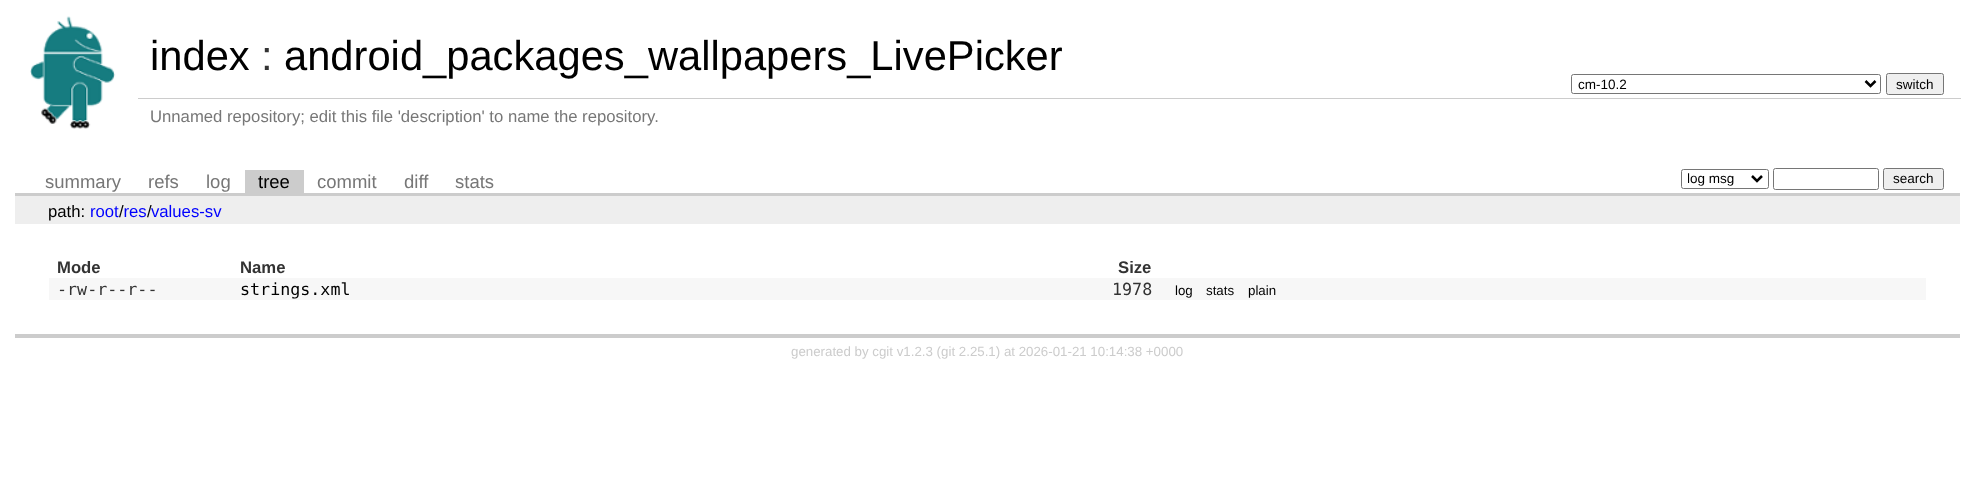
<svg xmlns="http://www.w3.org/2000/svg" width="1975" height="491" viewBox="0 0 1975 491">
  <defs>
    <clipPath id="clip1"><rect x="1688" y="170" width="60" height="18"/></clipPath>
  </defs>
  <rect width="100%" height="100%" fill="rgb(255,255,255)"/>
  <image x="30" y="16" width="86" height="113" href="pic1.png"/>
  <text x="150" y="70" font-family="Liberation Sans" font-size="41.7" fill="rgb(0,0,0)">index</text>
  <text x="261" y="70" font-family="Liberation Sans" font-size="41.7" fill="rgb(51,51,51)">:</text>
  <text x="284" y="70" font-family="Liberation Sans" font-size="41.7" fill="rgb(0,0,0)">android_packages_wallpapers_LivePicker</text>
  <rect x="1571.5" y="74.5" width="309" height="19" rx="2" fill="none" stroke="rgb(118,118,118)"/>
  <path d="M1865.5 81L1870.5 86L1875.5 81" fill="none" stroke="rgb(0,0,0)" stroke-width="2.5"/>
  <text x="1578" y="89" font-family="Liberation Sans" font-size="13.5" fill="rgb(0,0,0)">cm-10.2</text>
  <rect x="1886.5" y="73.5" width="57" height="21" rx="2" fill="rgb(239,239,239)" stroke="rgb(118,118,118)"/>
  <text x="1896" y="89" font-family="Liberation Sans" font-size="13.5" fill="rgb(0,0,0)">switch</text>
  <rect x="138" y="98" width="1823" height="1" fill="rgb(204,204,204)"/>
  <text x="150" y="122" font-family="Liberation Sans" font-size="16.7" fill="rgb(119,119,119)">Unnamed repository; edit this file 'description' to name the repository.</text>
  <rect x="15" y="193" width="1945" height="3" fill="rgb(204,204,204)"/>
  <g font-family="Liberation Sans" font-size="18.5" fill="rgb(119,119,119)">
    <text x="45" y="188">summary</text>
    <text x="148" y="188">refs</text>
    <text x="206" y="188">log</text>
  </g>
  <rect x="245" y="170" width="59" height="23" fill="rgb(204,204,204)"/>
  <text x="258" y="188" font-family="Liberation Sans" font-size="18.5" fill="rgb(0,0,0)">tree</text>
  <g font-family="Liberation Sans" font-size="18.5" fill="rgb(119,119,119)">
    <text x="317" y="188">commit</text>
    <text x="404" y="188">diff</text>
    <text x="455" y="188">stats</text>
  </g>
  <rect x="1681.5" y="169.5" width="87" height="19" rx="2" fill="none" stroke="rgb(118,118,118)"/>
  <path d="M1752 176L1757 181L1762 176" fill="none" stroke="rgb(0,0,0)" stroke-width="2.5"/>
  <g clip-path="url(#clip1)">
    <text x="1687" y="183" font-family="Liberation Sans" font-size="13.5" fill="rgb(0,0,0)">log msg</text>
  </g>
  <rect x="1773.5" y="168.5" width="105" height="21" rx="2" fill="none" stroke="rgb(118,118,118)"/>
  <rect x="1883.5" y="168.5" width="60" height="21" rx="2" fill="rgb(239,239,239)" stroke="rgb(118,118,118)"/>
  <text x="1893" y="183" font-family="Liberation Sans" font-size="13.5" fill="rgb(0,0,0)">search</text>
  <rect x="15" y="196" width="1945" height="28" fill="rgb(238,238,238)"/>
  <text x="48" y="217" font-family="Liberation Sans" font-size="16.7" fill="rgb(0,0,0)">path:</text>
  <text x="90" y="217" font-family="Liberation Sans" font-size="16.7" fill="rgb(0,0,255)">root res</text>
  <g font-family="Liberation Sans" font-size="16.7" fill="rgb(0,0,0)">
    <text x="119" y="217">/</text>
    <text x="147" y="217">/</text>
  </g>
  <text x="151" y="217" font-family="Liberation Sans" font-size="16.7" fill="rgb(0,0,255)">values-sv</text>
  <rect x="15" y="334" width="1945" height="4" fill="rgb(204,204,204)"/>
  <g font-family="Liberation Sans" font-size="16.7" font-weight="bold" fill="rgb(51,51,51)">
    <text x="57" y="273">Mode</text>
    <text x="240" y="273">Name</text>
    <text x="1118" y="273">Size</text>
  </g>
  <rect x="49" y="278" width="1877" height="22" fill="rgb(247,247,247)"/>
  <text x="57" y="295" font-family="DejaVu Sans Mono" font-size="16.7" fill="rgb(51,51,51)">-rw-r--r--</text>
  <text x="240" y="295" font-family="DejaVu Sans Mono" font-size="16.7" fill="rgb(0,0,0)">strings.xml</text>
  <text x="1112" y="295" font-family="DejaVu Sans Mono" font-size="16.7" fill="rgb(51,51,51)">1978</text>
  <g font-family="Liberation Sans" font-size="13.3" fill="rgb(0,0,0)">
    <text x="1175" y="295">log</text>
    <text x="1206" y="295">stats</text>
    <text x="1248" y="295">plain</text>
  </g>
  <text x="791" y="356" font-family="Liberation Sans" font-size="13.3" fill="rgb(204,204,204)">generated by cgit v1.2.3 (git 2.25.1) at 2026-01-21 10:14:38 +0000</text>
</svg>
